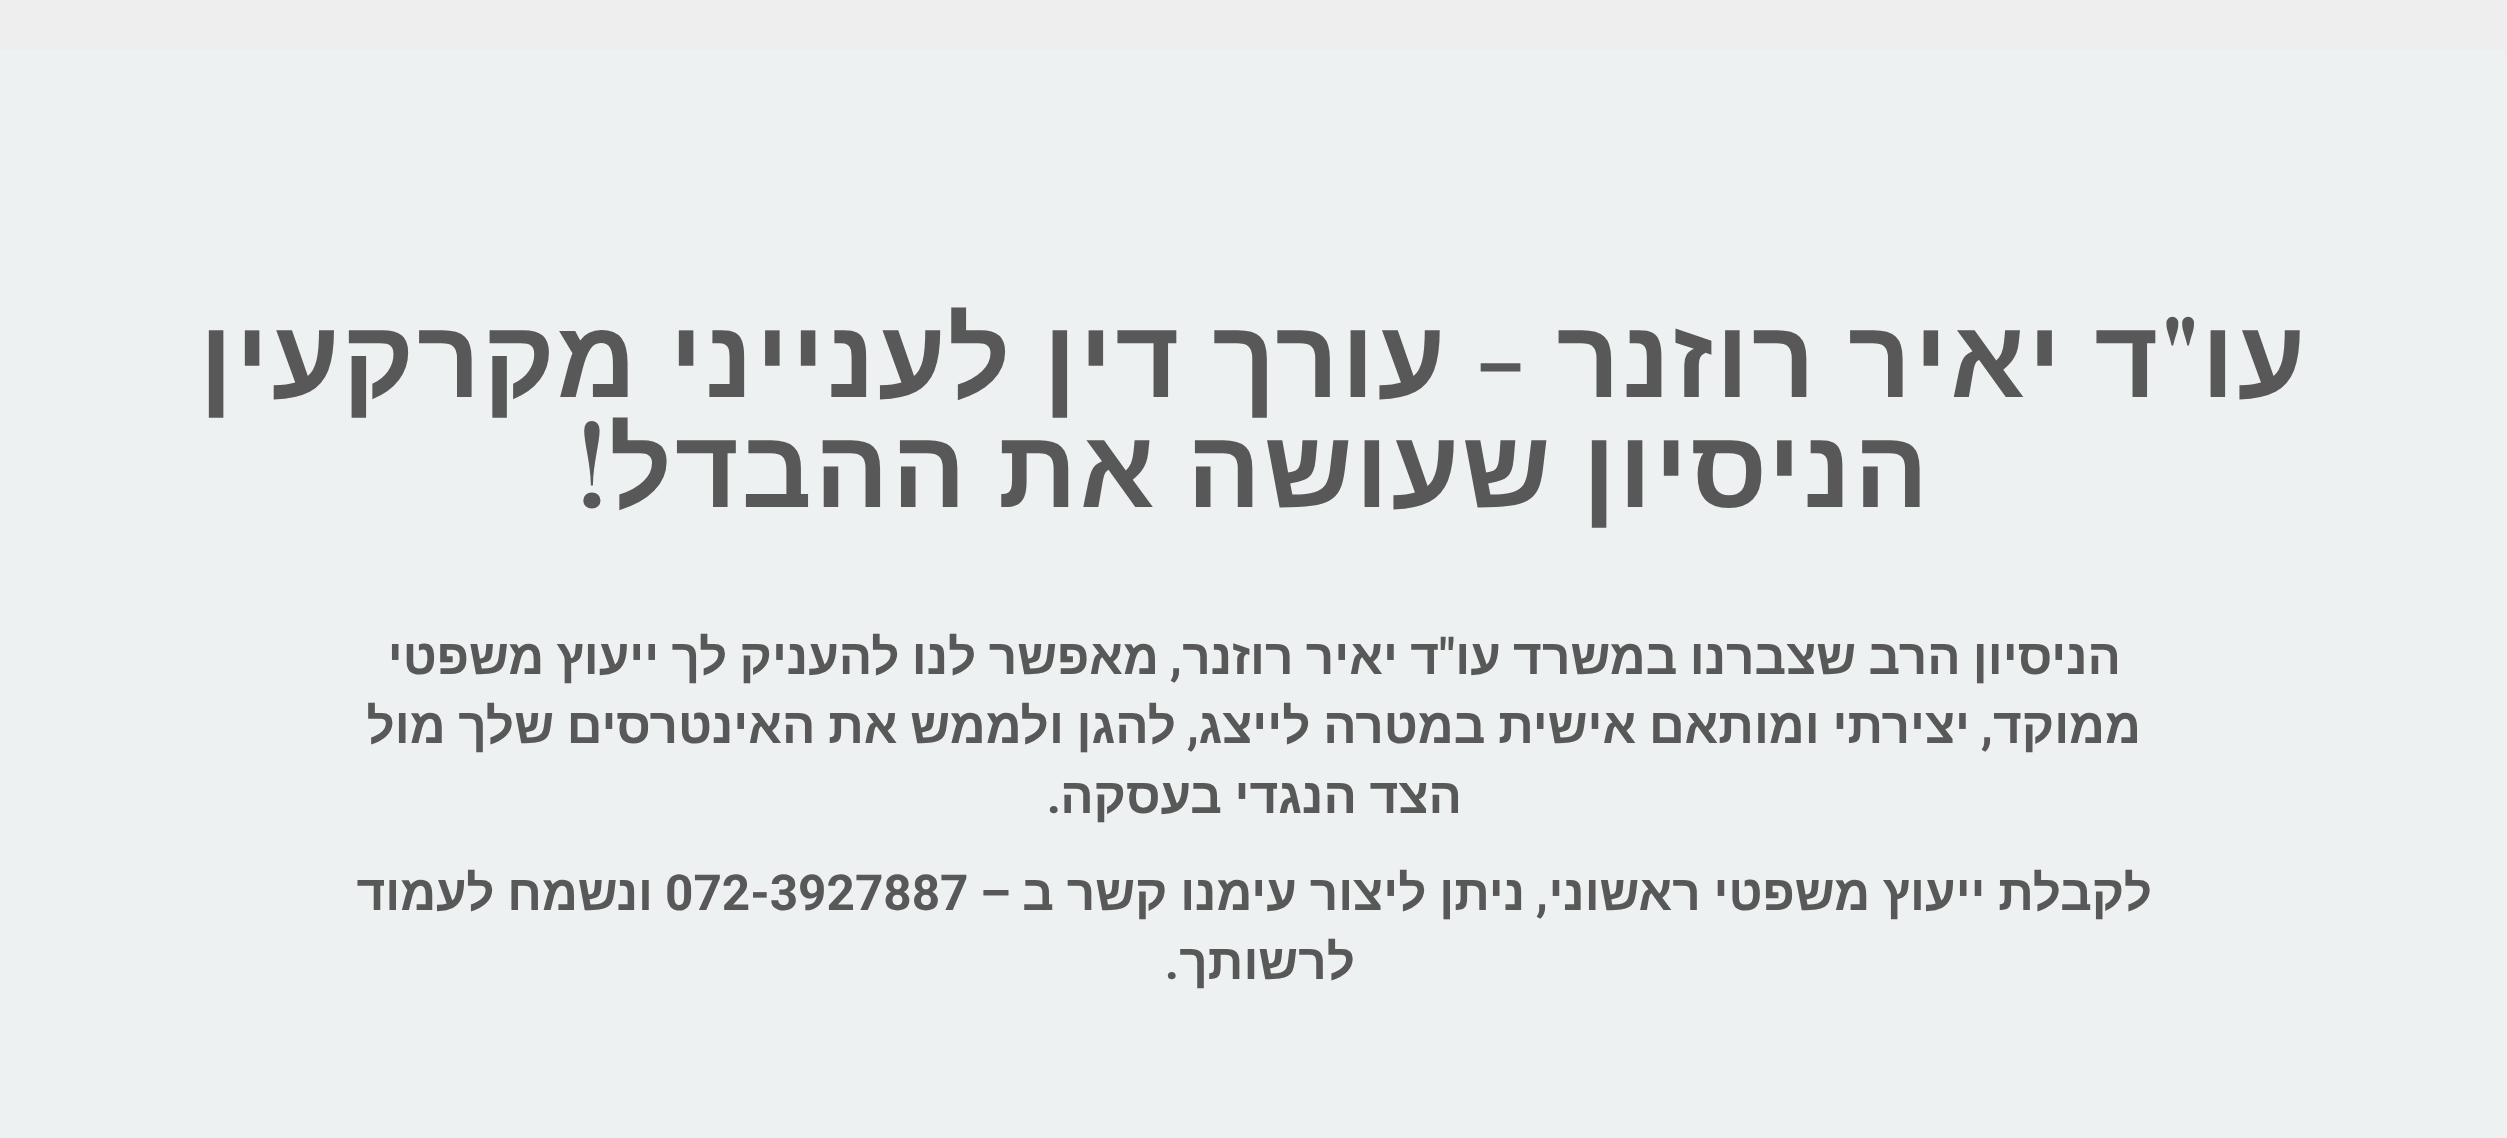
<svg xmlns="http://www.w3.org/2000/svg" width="2507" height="1138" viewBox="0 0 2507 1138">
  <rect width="100%" height="100%" fill="rgb(238,241,242)"/>
  <rect x="0" y="0" width="2507" height="50" fill="rgb(238,238,238)"/>
  <text x="2308" y="397" font-family="Liberation Sans" font-size="110" font-weight="bold" letter-spacing="2.75" direction="rtl" fill="rgb(89,88,88)">עו</text>
  <text x="2202" y="397" font-family="Playfair Display" font-size="110" font-weight="600" letter-spacing="2.75" direction="rtl" fill="rgb(89,88,88)">"</text>
  <text x="2161" y="397" word-spacing="-3" font-family="Liberation Sans" font-size="110" font-weight="bold" letter-spacing="2.75" direction="rtl" fill="rgb(89,88,88)">ד יאיר רוזנר</text>
  <text x="1530" y="397" font-family="Playfair Display" font-size="110" font-weight="600" letter-spacing="2.75" direction="rtl" fill="rgb(89,88,88)">-</text>
  <g font-family="Liberation Sans" font-size="110" font-weight="bold" letter-spacing="2.75" direction="rtl" fill="rgb(89,88,88)">
    <text x="1448" y="397" word-spacing="-3">עורך דין לענייני מקרקעין</text>
    <text x="1931" y="507" word-spacing="-4">הניסיון שעושה את ההבדל</text>
  </g>
  <text x="610" y="507" font-family="Playfair Display" font-size="110" font-weight="600" letter-spacing="2.75" direction="rtl" fill="rgb(89,88,88)">!</text>
  <g font-family="Liberation Sans" font-size="49.5" font-weight="bold" direction="rtl" fill="rgb(89,88,88)">
    <text x="2121" y="674" word-spacing="-1.5">הניסיון הרב שצברנו במשרד עו</text>
    <text x="1439" y="674" word-spacing="-1.5">ד יאיר רוזנר</text>
  </g>
  <g font-family="Roboto" font-size="49.5" font-weight="bold" direction="rtl" fill="rgb(89,88,88)">
    <text x="1455" y="674">"</text>
    <text x="1182" y="674">,</text>
  </g>
  <g font-family="Liberation Sans" font-size="49.5" font-weight="bold" direction="rtl" fill="rgb(89,88,88)">
    <text x="1159" y="674" word-spacing="-1.5">מאפשר לנו להעניק לך ייעוץ משפטי</text>
    <text x="2141" y="743">ממוקד</text>
  </g>
  <text x="1993" y="743" font-family="Roboto" font-size="49.5" font-weight="bold" direction="rtl" fill="rgb(89,88,88)">,</text>
  <text x="1970" y="743" word-spacing="-1" font-family="Liberation Sans" font-size="49.5" font-weight="bold" direction="rtl" fill="rgb(89,88,88)">יצירתי ומותאם אישית במטרה לייצג</text>
  <text x="1199" y="743" font-family="Roboto" font-size="49.5" font-weight="bold" direction="rtl" fill="rgb(89,88,88)">,</text>
  <g font-family="Liberation Sans" font-size="49.5" font-weight="bold" direction="rtl" fill="rgb(89,88,88)">
    <text x="1176" y="743" word-spacing="-1">להגן ולממש את האינטרסים שלך מול</text>
    <text x="1462" y="813" word-spacing="-1">הצד הנגדי בעסקה</text>
  </g>
  <text x="1061" y="813" font-family="Roboto" font-size="49.5" font-weight="bold" direction="rtl" fill="rgb(89,88,88)">.</text>
  <g font-family="Liberation Sans" font-size="49.5" font-weight="bold" direction="rtl" fill="rgb(89,88,88)">
    <text x="2152" y="910" word-spacing="-1">לקבלת ייעוץ משפטי ראשוני</text>
    <text x="1525" y="910" word-spacing="-1">ניתן ליצור עימנו קשר ב</text>
  </g>
  <text x="1011" y="910" font-family="Roboto" font-size="49.5" font-weight="bold" direction="rtl" fill="rgb(89,88,88)">–</text>
  <text x="665" y="910" font-family="Roboto" font-size="49.5" font-weight="bold" fill="rgb(89,88,88)">072-3927887</text>
  <text x="653" y="910" word-spacing="-1" font-family="Liberation Sans" font-size="49.5" font-weight="bold" direction="rtl" fill="rgb(89,88,88)">ונשמח לעמוד</text>
  <text x="1548" y="910" font-family="Roboto" font-size="49.5" font-weight="bold" direction="rtl" fill="rgb(89,88,88)">,</text>
  <text x="1355" y="979" font-family="Liberation Sans" font-size="49.5" font-weight="bold" direction="rtl" fill="rgb(89,88,88)">לרשותך</text>
  <text x="1179" y="979" font-family="Roboto" font-size="49.5" font-weight="bold" direction="rtl" fill="rgb(89,88,88)">.</text>
</svg>
